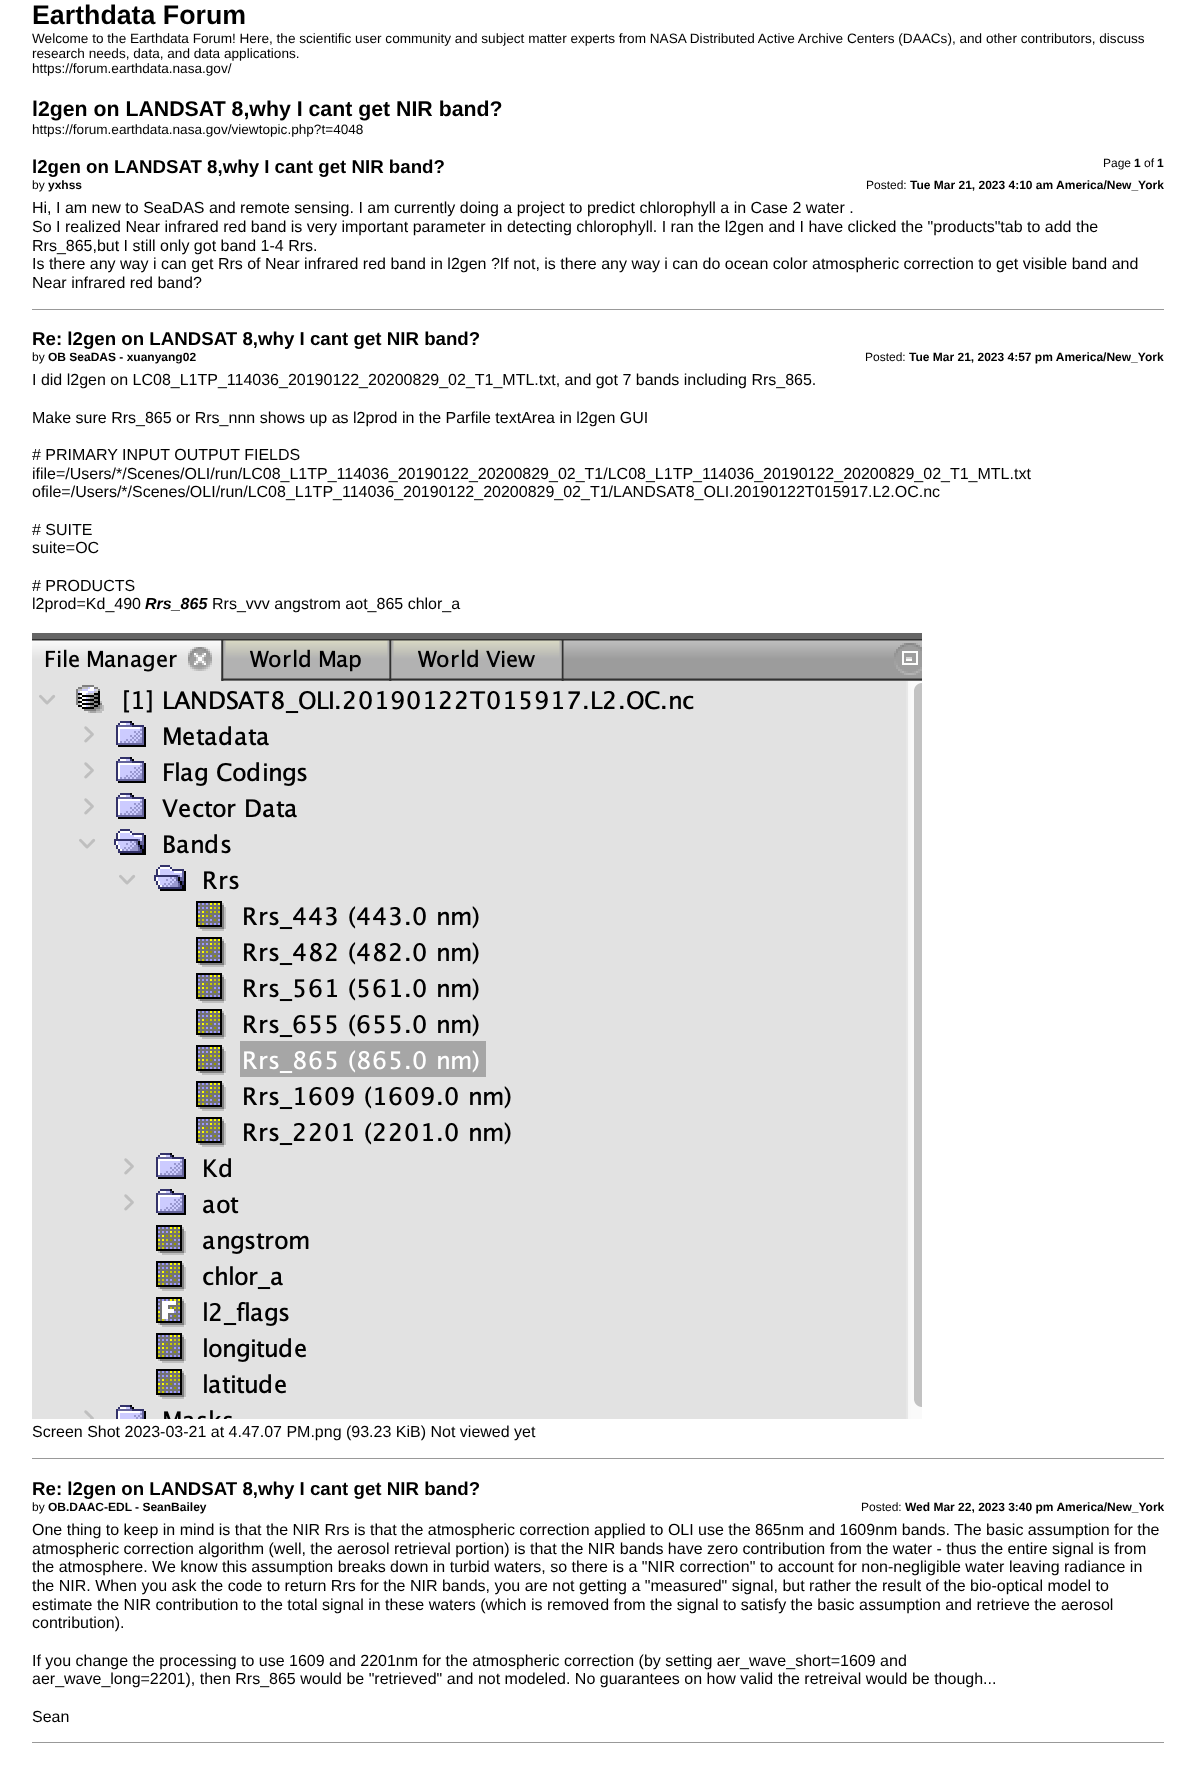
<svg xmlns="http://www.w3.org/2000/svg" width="1196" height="1775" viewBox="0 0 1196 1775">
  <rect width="100%" height="100%" fill="rgb(255,255,255)"/>
  <text x="32" y="24" font-family="Liberation Sans" font-size="26.75" font-weight="bold" fill="rgb(0,0,0)">Earthdata Forum</text>
  <g font-family="Liberation Sans" font-size="13.6" fill="rgb(0,0,0)">
    <text>
      <tspan x="32" y="43">Welcome to the Earthdata Forum! Here, the scientific user community and subject matter experts from NASA Distributed Active Archive Centers (DAACs), and other contributors, discuss</tspan>
      <tspan x="32" y="58">research needs, data, and data applications.</tspan>
      <tspan x="32" y="73">https://forum.earthdata.nasa.gov/</tspan>
    </text>
  </g>
  <text x="32" y="116" font-family="Liberation Sans" font-size="21.3" font-weight="bold" fill="rgb(0,0,0)">l2gen on LANDSAT 8,why I cant get NIR band?</text>
  <text x="32" y="134" font-family="Liberation Sans" font-size="13.6" fill="rgb(0,0,0)">https://forum.earthdata.nasa.gov/viewtopic.php?t=4048</text>
  <text x="1103" y="167" font-family="Liberation Sans" font-size="12" fill="rgb(0,0,0)">Page</text>
  <text x="1134" y="167" font-family="Liberation Sans" font-size="12" font-weight="bold" fill="rgb(0,0,0)">1</text>
  <text x="1144" y="167" font-family="Liberation Sans" font-size="12" fill="rgb(0,0,0)">of</text>
  <text x="1157" y="167" font-family="Liberation Sans" font-size="12" font-weight="bold" fill="rgb(0,0,0)">1</text>
  <text x="32" y="173" font-family="Liberation Sans" font-size="18.7" font-weight="bold" fill="rgb(0,0,0)">l2gen on LANDSAT 8,why I cant get NIR band?</text>
  <text x="32" y="189" font-family="Liberation Sans" font-size="12" fill="rgb(0,0,0)">by</text>
  <text x="48" y="189" font-family="Liberation Sans" font-size="12" font-weight="bold" fill="rgb(0,0,0)">yxhss</text>
  <text x="866" y="189" font-family="Liberation Sans" font-size="12" fill="rgb(0,0,0)">Posted:</text>
  <text x="910" y="189" font-family="Liberation Sans" font-size="12" font-weight="bold" fill="rgb(0,0,0)">Tue Mar 21, 2023 4:10 am America/New_York</text>
  <g font-family="Liberation Sans" font-size="16" fill="rgb(0,0,0)">
    <text>
      <tspan x="32" y="213">Hi, I am new to SeaDAS and remote sensing. I am currently doing a project to predict chlorophyll a in Case 2 water .</tspan>
      <tspan x="32" y="232">So I realized Near infrared red band is very important parameter in detecting chlorophyll. I ran the l2gen and I have clicked the "products"tab to add the</tspan>
      <tspan x="32" y="251">Rrs_865,but I still only got band 1-4 Rrs.</tspan>
      <tspan x="32" y="269">Is there any way i can get Rrs of Near infrared red band in l2gen ?If not, is there any way i can do ocean color atmospheric correction to get visible band and</tspan>
      <tspan x="32" y="288">Near infrared red band?</tspan>
    </text>
  </g>
  <rect x="32" y="309" width="1132" height="1" fill="rgb(153,153,153)"/>
  <text x="32" y="345" font-family="Liberation Sans" font-size="18.7" font-weight="bold" fill="rgb(0,0,0)">Re: l2gen on LANDSAT 8,why I cant get NIR band?</text>
  <text x="32" y="361" font-family="Liberation Sans" font-size="12" fill="rgb(0,0,0)">by</text>
  <text x="48" y="361" font-family="Liberation Sans" font-size="12" font-weight="bold" fill="rgb(0,0,0)">OB SeaDAS - xuanyang02</text>
  <text x="865" y="361" font-family="Liberation Sans" font-size="12" fill="rgb(0,0,0)">Posted:</text>
  <text x="909" y="361" font-family="Liberation Sans" font-size="12" font-weight="bold" fill="rgb(0,0,0)">Tue Mar 21, 2023 4:57 pm America/New_York</text>
  <g font-family="Liberation Sans" font-size="16" fill="rgb(0,0,0)">
    <text x="32" y="385">I did l2gen on LC08_L1TP_114036_20190122_20200829_02_T1_MTL.txt, and got 7 bands including Rrs_865.</text>
    <text x="32" y="423">Make sure Rrs_865 or Rrs_nnn shows up as l2prod in the Parfile textArea in l2gen GUI</text>
    <text>
      <tspan x="32" y="460"># PRIMARY INPUT OUTPUT FIELDS</tspan>
      <tspan x="32" y="479">ifile=/Users/*/Scenes/OLI/run/LC08_L1TP_114036_20190122_20200829_02_T1/LC08_L1TP_114036_20190122_20200829_02_T1_MTL.txt</tspan>
      <tspan x="32" y="497">ofile=/Users/*/Scenes/OLI/run/LC08_L1TP_114036_20190122_20200829_02_T1/LANDSAT8_OLI.20190122T015917.L2.OC.nc</tspan>
    </text>
    <text>
      <tspan x="32" y="535"># SUITE</tspan>
      <tspan x="32" y="553">suite=OC</tspan>
    </text>
    <text>
      <tspan x="32" y="591"># PRODUCTS</tspan>
      <tspan x="32" y="609">l2prod=Kd_490</tspan>
    </text>
  </g>
  <text x="145" y="609" font-family="Liberation Sans" font-size="16" font-weight="bold" font-style="italic" fill="rgb(0,0,0)">Rrs_865</text>
  <text x="212" y="609" font-family="Liberation Sans" font-size="16" fill="rgb(0,0,0)">Rrs_vvv angstrom aot_865 chlor_a</text>
  <image x="32" y="633" width="890" height="786" href="pic1.png"/>
  <text x="32" y="1437" font-family="Liberation Sans" font-size="16" fill="rgb(0,0,0)">Screen Shot 2023-03-21 at 4.47.07 PM.png (93.23 KiB) Not viewed yet</text>
  <rect x="32" y="1458" width="1132" height="1" fill="rgb(153,153,153)"/>
  <text x="32" y="1495" font-family="Liberation Sans" font-size="18.7" font-weight="bold" fill="rgb(0,0,0)">Re: l2gen on LANDSAT 8,why I cant get NIR band?</text>
  <text x="32" y="1511" font-family="Liberation Sans" font-size="12" fill="rgb(0,0,0)">by</text>
  <text x="48" y="1511" font-family="Liberation Sans" font-size="12" font-weight="bold" fill="rgb(0,0,0)">OB.DAAC-EDL - SeanBailey</text>
  <text x="861" y="1511" font-family="Liberation Sans" font-size="12" fill="rgb(0,0,0)">Posted:</text>
  <text x="905" y="1511" font-family="Liberation Sans" font-size="12" font-weight="bold" fill="rgb(0,0,0)">Wed Mar 22, 2023 3:40 pm America/New_York</text>
  <g font-family="Liberation Sans" font-size="16" fill="rgb(0,0,0)">
    <text>
      <tspan x="32" y="1535">One thing to keep in mind is that the NIR Rrs is that the atmospheric correction applied to OLI use the 865nm and 1609nm bands. The basic assumption for the</tspan>
      <tspan x="32" y="1554">atmospheric correction algorithm (well, the aerosol retrieval portion) is that the NIR bands have zero contribution from the water - thus the entire signal is from</tspan>
      <tspan x="32" y="1572">the atmosphere. We know this assumption breaks down in turbid waters, so there is a "NIR correction" to account for non-negligible water leaving radiance in</tspan>
      <tspan x="32" y="1591">the NIR. When you ask the code to return Rrs for the NIR bands, you are not getting a "measured" signal, but rather the result of the bio-optical model to</tspan>
      <tspan x="32" y="1610">estimate the NIR contribution to the total signal in these waters (which is removed from the signal to satisfy the basic assumption and retrieve the aerosol</tspan>
      <tspan x="32" y="1628">contribution).</tspan>
    </text>
    <text>
      <tspan x="32" y="1666">If you change the processing to use 1609 and 2201nm for the atmospheric correction (by setting aer_wave_short=1609 and</tspan>
      <tspan x="32" y="1684">aer_wave_long=2201), then Rrs_865 would be "retrieved" and not modeled. No guarantees on how valid the retreival would be though...</tspan>
    </text>
    <text x="32" y="1722">Sean</text>
  </g>
  <rect x="32" y="1742" width="1132" height="1" fill="rgb(153,153,153)"/>
</svg>
